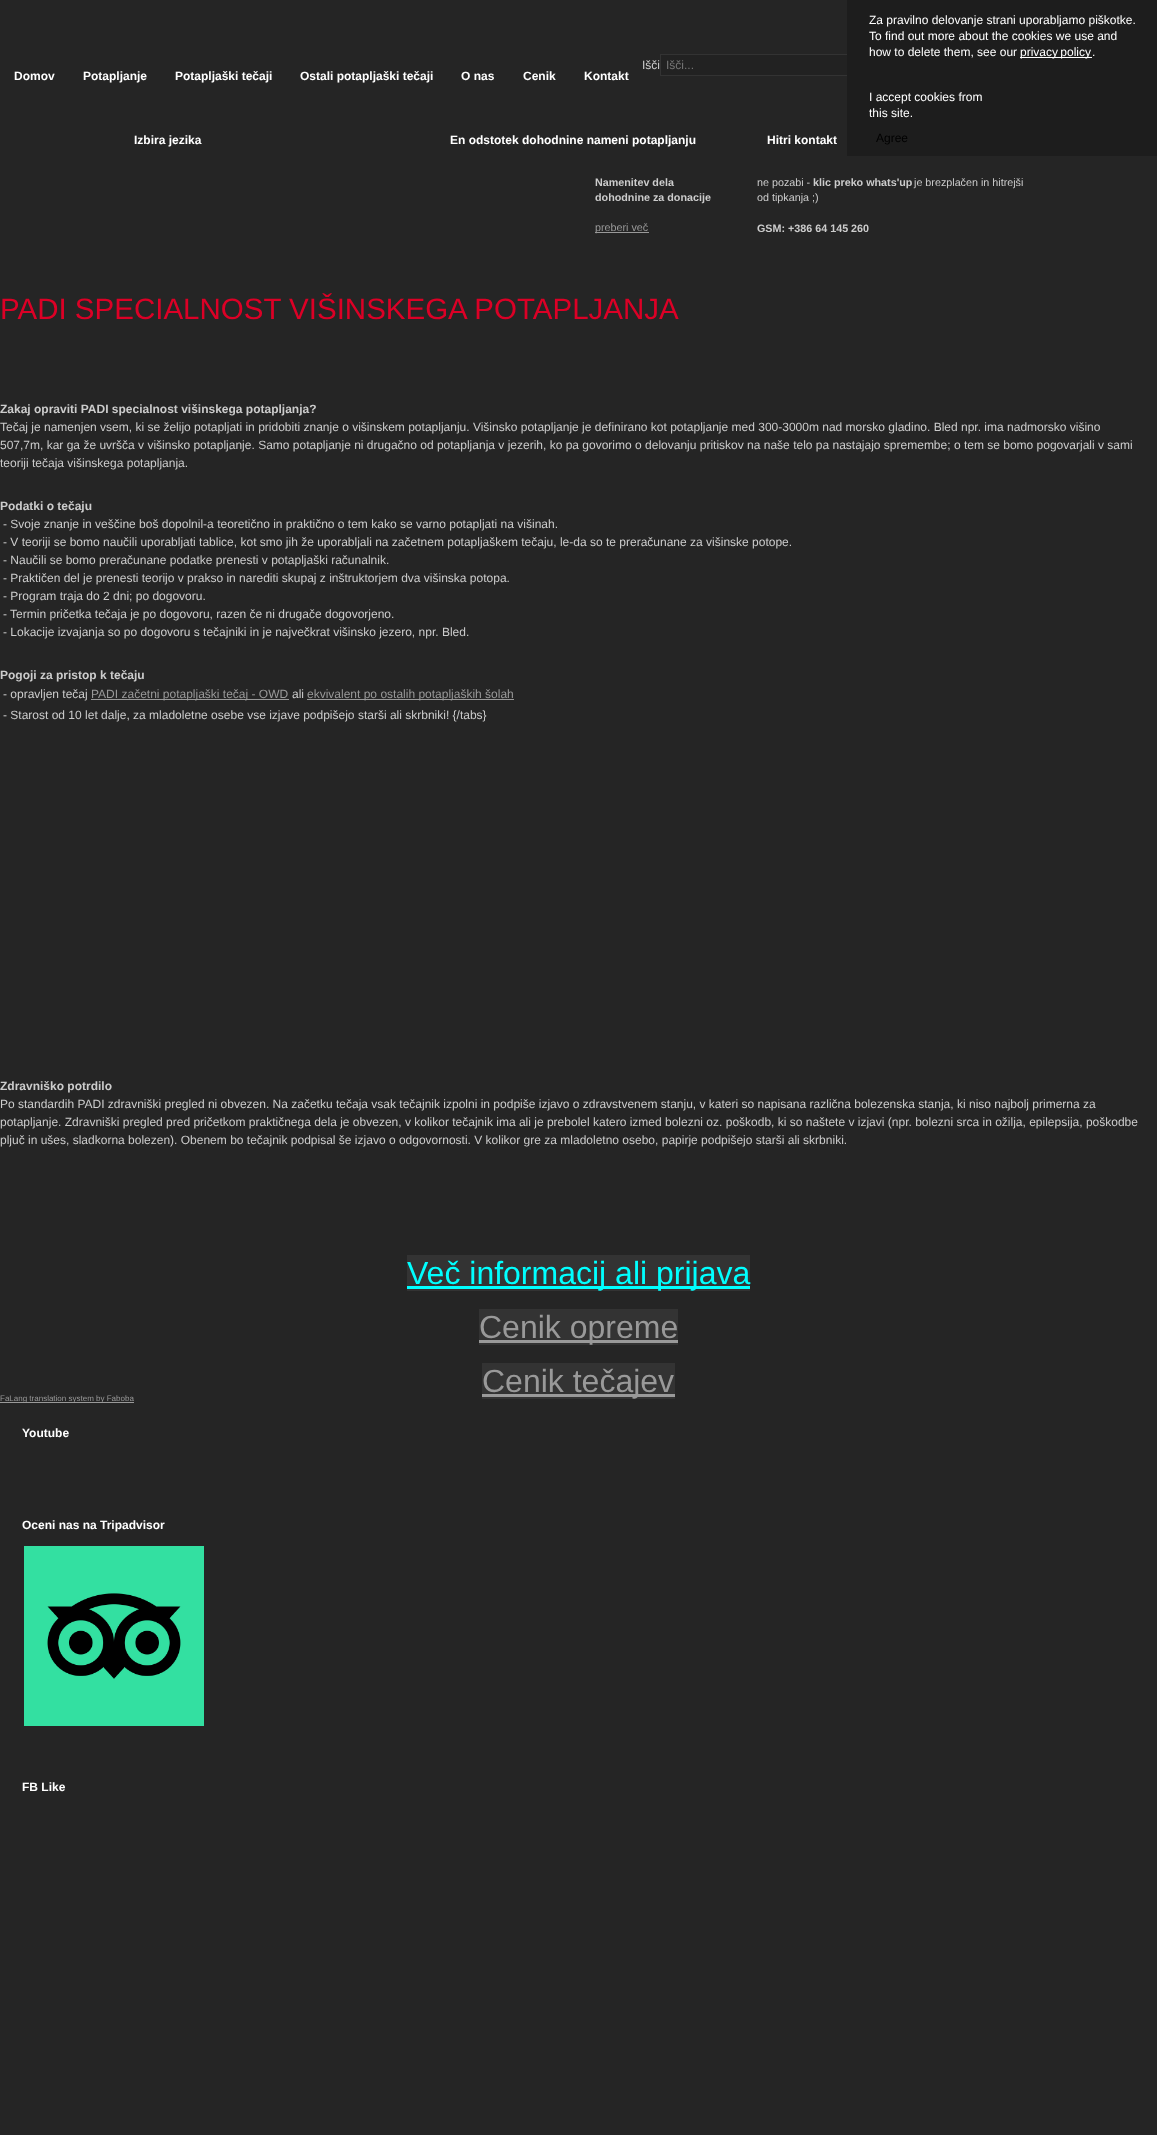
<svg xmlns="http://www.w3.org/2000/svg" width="1157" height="2135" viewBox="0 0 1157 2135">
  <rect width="100%" height="100%" fill="rgb(37,37,37)"/>
  <rect x="661" y="55" width="186" height="20" fill="rgb(34,34,34)"/>
  <rect x="660.5" y="54.5" width="201" height="21" fill="none" stroke="rgb(51,51,51)"/>
  <rect x="847" y="0" width="310" height="156" fill="rgb(29,29,29)"/>
  <g font-family="Liberation Sans" font-size="12" fill="rgb(255,255,255)">
    <text>
      <tspan x="869" y="24">Za pravilno delovanje strani uporabljamo piškotke.</tspan>
      <tspan x="869" y="40">To find out more about the cookies we use and</tspan>
      <tspan x="869" y="56">how to delete them, see our</tspan>
    </text>
  </g>
  <rect x="1020" y="57" width="72" height="1" fill="rgb(255,255,255)"/>
  <g font-family="Liberation Sans" font-size="12" fill="rgb(255,255,255)">
    <text x="1020" y="56" word-spacing="-1">privacy policy</text>
    <text x="1092" y="56">.</text>
    <text>
      <tspan x="869" y="101">I accept cookies from</tspan>
      <tspan x="869" y="117">this site.</tspan>
    </text>
  </g>
  <text x="876" y="142" font-family="Liberation Sans" font-size="12" fill="rgb(0,0,0)">Agree</text>
  <text x="642" y="69" font-family="Liberation Sans" font-size="12" fill="rgb(204,204,204)">Išči</text>
  <text x="666" y="69" font-family="Liberation Sans" font-size="12" fill="rgb(117,117,117)">Išči...</text>
  <g font-family="Liberation Sans" font-size="12" font-weight="bold" fill="rgb(255,255,255)">
    <text x="14" y="80">Domov</text>
    <text x="83" y="80">Potapljanje</text>
    <text x="175" y="80">Potapljaški tečaji</text>
    <text x="300" y="80">Ostali potapljaški tečaji</text>
    <text x="461" y="80">O nas</text>
    <text x="523" y="80">Cenik</text>
    <text x="584" y="80">Kontakt</text>
    <text x="134" y="144">Izbira jezika</text>
    <text x="450" y="144">En odstotek dohodnine nameni potapljanju</text>
  </g>
  <g font-family="Liberation Sans" font-size="10.75" font-weight="bold" fill="rgb(204,204,204)">
    <text>
      <tspan x="595" y="186">Namenitev dela</tspan>
      <tspan x="595" y="201">dohodnine za donacije</tspan>
    </text>
  </g>
  <rect x="595" y="232" width="54" height="1" fill="rgb(153,153,153)"/>
  <text x="595" y="231" font-family="Liberation Sans" font-size="10.75" fill="rgb(153,153,153)">preberi več</text>
  <text x="767" y="144" font-family="Liberation Sans" font-size="12" font-weight="bold" fill="rgb(255,255,255)">Hitri kontakt</text>
  <text x="757" y="186" font-family="Liberation Sans" font-size="10.75" fill="rgb(204,204,204)">ne pozabi -</text>
  <text x="813" y="186" font-family="Liberation Sans" font-size="10.75" font-weight="bold" fill="rgb(204,204,204)">klic preko whats'up</text>
  <g font-family="Liberation Sans" font-size="10.75" fill="rgb(204,204,204)">
    <text x="914" y="186">je brezplačen in hitrejši</text>
    <text x="757" y="201">od tipkanja ;)</text>
  </g>
  <text x="757" y="232" font-family="Liberation Sans" font-size="10.75" font-weight="bold" fill="rgb(204,204,204)">GSM: +386 64 145 260</text>
  <text x="0" y="319" font-family="Liberation Sans" font-size="29.5" fill="rgb(220,0,38)">PADI SPECIALNOST VIŠINSKEGA POTAPLJANJA</text>
  <text x="0" y="413" font-family="Liberation Sans" font-size="12" font-weight="bold" fill="rgb(204,204,204)">Zakaj opraviti PADI specialnost višinskega potapljanja?</text>
  <g font-family="Liberation Sans" font-size="12" fill="rgb(204,204,204)">
    <text>
      <tspan x="0" y="431">Tečaj je namenjen vsem, ki se želijo potapljati in pridobiti znanje o višinskem potapljanju. Višinsko potapljanje je definirano kot potapljanje med 300-3000m nad morsko gladino. Bled npr. ima nadmorsko višino</tspan>
      <tspan x="0" y="449">507,7m, kar ga že uvršča v višinsko potapljanje. Samo potapljanje ni drugačno od potapljanja v jezerih, ko pa govorimo o delovanju pritiskov na naše telo pa nastajajo spremembe; o tem se bomo pogovarjali v sami</tspan>
      <tspan x="0" y="467">teoriji tečaja višinskega potapljanja.</tspan>
    </text>
  </g>
  <text x="0" y="510" font-family="Liberation Sans" font-size="12" font-weight="bold" fill="rgb(204,204,204)">Podatki o tečaju</text>
  <g font-family="Liberation Sans" font-size="12" fill="rgb(204,204,204)">
    <text>
      <tspan x="3" y="528">- Svoje znanje in veščine boš dopolnil-a teoretično in praktično o tem kako se varno potapljati na višinah.</tspan>
      <tspan x="3" y="546">- V teoriji se bomo naučili uporabljati tablice, kot smo jih že uporabljali na začetnem potapljaškem tečaju, le-da so te preračunane za višinske potope.</tspan>
      <tspan x="3" y="564">- Naučili se bomo preračunane podatke prenesti v potapljaški računalnik.</tspan>
      <tspan x="3" y="582">- Praktičen del je prenesti teorijo v prakso in narediti skupaj z inštruktorjem dva višinska potopa.</tspan>
      <tspan x="3" y="600">- Program traja do 2 dni; po dogovoru.</tspan>
      <tspan x="3" y="618">- Termin pričetka tečaja je po dogovoru, razen če ni drugače dogovorjeno.</tspan>
      <tspan x="3" y="636">- Lokacije izvajanja so po dogovoru s tečajniki in je največkrat višinsko jezero, npr. Bled.</tspan>
    </text>
  </g>
  <text x="0" y="679" font-family="Liberation Sans" font-size="12" font-weight="bold" fill="rgb(204,204,204)">Pogoji za pristop k tečaju</text>
  <text x="3" y="698" font-family="Liberation Sans" font-size="12" fill="rgb(204,204,204)">- opravljen tečaj</text>
  <rect x="91" y="699" width="198" height="1" fill="rgb(153,153,153)"/>
  <text x="91" y="698" font-family="Liberation Sans" font-size="12" fill="rgb(153,153,153)">PADI začetni potapljaški tečaj - OWD</text>
  <text x="292" y="698" font-family="Liberation Sans" font-size="12" fill="rgb(204,204,204)">ali</text>
  <rect x="307" y="699" width="207" height="1" fill="rgb(153,153,153)"/>
  <text x="307" y="698" font-family="Liberation Sans" font-size="12" fill="rgb(153,153,153)">ekvivalent po ostalih potapljaških šolah</text>
  <text x="3" y="719" font-family="Liberation Sans" font-size="12" fill="rgb(204,204,204)">- Starost od 10 let dalje, za mladoletne osebe vse izjave podpišejo starši ali skrbniki! {/tabs}</text>
  <text x="0" y="1090" font-family="Liberation Sans" font-size="12" font-weight="bold" fill="rgb(204,204,204)">Zdravniško potrdilo</text>
  <g font-family="Liberation Sans" font-size="12" fill="rgb(204,204,204)">
    <text>
      <tspan x="0" y="1108">Po standardih PADI zdravniški pregled ni obvezen. Na začetku tečaja vsak tečajnik izpolni in podpiše izjavo o zdravstvenem stanju, v kateri so napisana različna bolezenska stanja, ki niso najbolj primerna za</tspan>
      <tspan x="0" y="1126">potapljanje. Zdravniški pregled pred pričetkom praktičnega dela je obvezen, v kolikor tečajnik ima ali je prebolel katero izmed bolezni oz. poškodb, ki so naštete v izjavi (npr. bolezni srca in ožilja, epilepsija, poškodbe</tspan>
      <tspan x="0" y="1144">pljuč in ušes, sladkorna bolezen). Obenem bo tečajnik podpisal še izjavo o odgovornosti. V kolikor gre za mladoletno osebo, papirje podpišejo starši ali skrbniki.</tspan>
    </text>
  </g>
  <rect x="407" y="1255" width="343" height="36" fill="rgb(51,51,51)"/>
  <rect x="407" y="1286" width="343" height="3" fill="rgb(0,255,255)"/>
  <text x="407" y="1284" font-family="Liberation Sans" font-size="32" fill="rgb(0,255,255)">Več informacij ali prijava</text>
  <rect x="479" y="1309" width="199" height="36" fill="rgb(51,51,51)"/>
  <rect x="479" y="1340" width="199" height="3" fill="rgb(153,153,153)"/>
  <text x="479" y="1338" font-family="Liberation Sans" font-size="32" fill="rgb(153,153,153)">Cenik opreme</text>
  <rect x="482" y="1363" width="193" height="36" fill="rgb(51,51,51)"/>
  <rect x="482" y="1394" width="193" height="3" fill="rgb(153,153,153)"/>
  <text x="482" y="1392" font-family="Liberation Sans" font-size="32" fill="rgb(153,153,153)">Cenik tečajev</text>
  <rect x="0" y="1402" width="134" height="1" fill="rgb(153,153,153)"/>
  <text x="0" y="1401" font-family="Liberation Sans" font-size="8" fill="rgb(153,153,153)">FaLang translation system by Faboba</text>
  <g font-family="Liberation Sans" font-size="12" font-weight="bold" fill="rgb(255,255,255)">
    <text x="22" y="1437">Youtube</text>
    <text x="22" y="1529">Oceni nas na Tripadvisor</text>
  </g>
  <image x="24" y="1546" width="180" height="180" href="pic1.png"/>
  <text x="22" y="1791" font-family="Liberation Sans" font-size="12" font-weight="bold" fill="rgb(255,255,255)">FB Like</text>
</svg>
